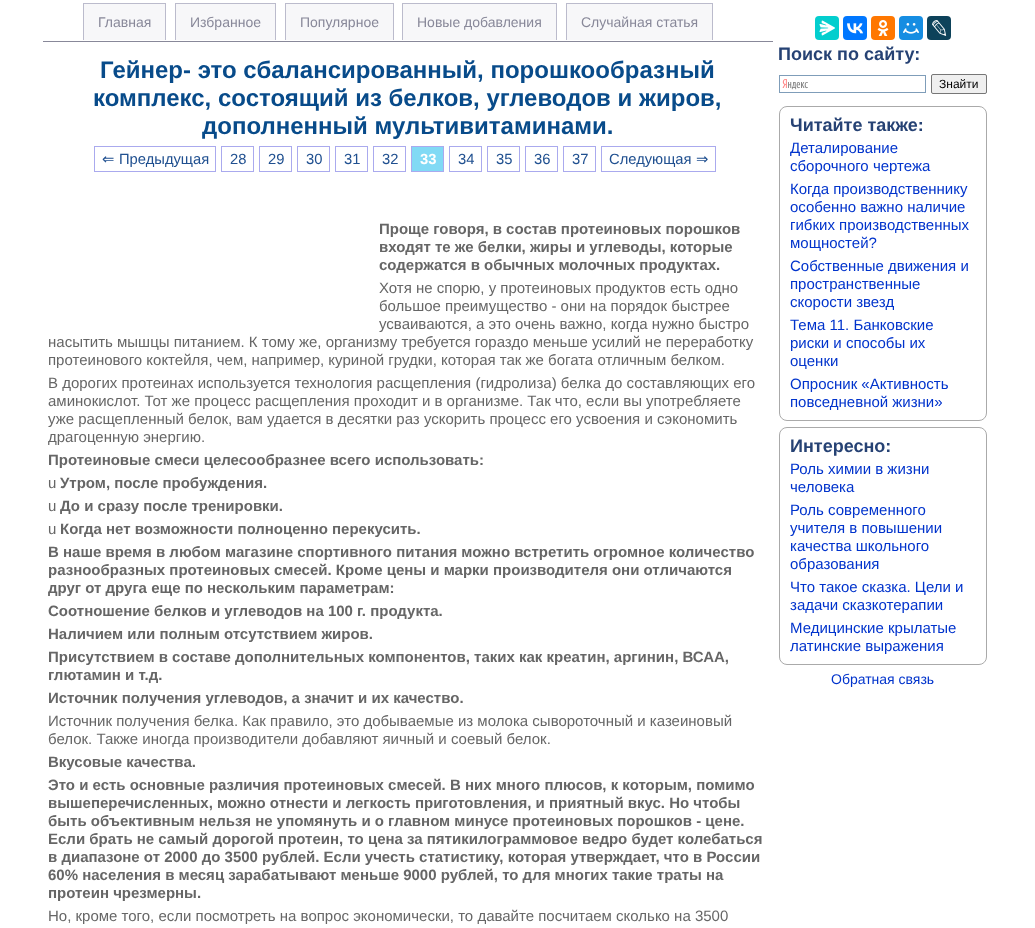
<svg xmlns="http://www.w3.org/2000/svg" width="1035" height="928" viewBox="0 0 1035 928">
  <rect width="100%" height="100%" fill="rgb(255,255,255)"/>
  <rect x="43" y="41" width="730" height="1" fill="rgb(136,136,153)"/>
  <rect x="84" y="4" width="81" height="36" fill="rgb(247,247,249)"/>
  <text x="98" y="27" font-family="Liberation Sans" font-size="14" fill="rgb(136,136,153)">Главная</text>
  <rect x="83" y="3" width="83" height="1" fill="rgb(187,187,204)"/>
  <rect x="165" y="3" width="1" height="37" fill="rgb(187,187,204)"/>
  <rect x="83" y="3" width="1" height="37" fill="rgb(187,187,204)"/>
  <rect x="176" y="4" width="99" height="36" fill="rgb(247,247,249)"/>
  <text x="190" y="27" font-family="Liberation Sans" font-size="14" fill="rgb(136,136,153)">Избранное</text>
  <rect x="175" y="3" width="101" height="1" fill="rgb(187,187,204)"/>
  <rect x="275" y="3" width="1" height="37" fill="rgb(187,187,204)"/>
  <rect x="175" y="3" width="1" height="37" fill="rgb(187,187,204)"/>
  <rect x="286" y="4" width="107" height="36" fill="rgb(247,247,249)"/>
  <text x="300" y="27" font-family="Liberation Sans" font-size="14" fill="rgb(136,136,153)">Популярное</text>
  <rect x="285" y="3" width="109" height="1" fill="rgb(187,187,204)"/>
  <rect x="393" y="3" width="1" height="37" fill="rgb(187,187,204)"/>
  <rect x="285" y="3" width="1" height="37" fill="rgb(187,187,204)"/>
  <rect x="403" y="4" width="153" height="36" fill="rgb(247,247,249)"/>
  <text x="417" y="27" font-family="Liberation Sans" font-size="14" fill="rgb(136,136,153)">Новые добавления</text>
  <rect x="402" y="3" width="155" height="1" fill="rgb(187,187,204)"/>
  <rect x="556" y="3" width="1" height="37" fill="rgb(187,187,204)"/>
  <rect x="402" y="3" width="1" height="37" fill="rgb(187,187,204)"/>
  <rect x="567" y="4" width="145" height="36" fill="rgb(247,247,249)"/>
  <text x="581" y="27" font-family="Liberation Sans" font-size="14" fill="rgb(136,136,153)">Случайная статья</text>
  <rect x="566" y="3" width="147" height="1" fill="rgb(187,187,204)"/>
  <rect x="712" y="3" width="1" height="37" fill="rgb(187,187,204)"/>
  <rect x="566" y="3" width="1" height="37" fill="rgb(187,187,204)"/>
  <g font-family="Liberation Sans" font-size="24" font-weight="bold" fill="rgb(8,75,138)">
    <text x="100" y="78">Гейнер- это сбалансированный, порошкообразный</text>
    <text x="93" y="106">комплекс, состоящий из белков, углеводов и жиров,</text>
    <text x="202" y="134">дополненный мультивитаминами.</text>
  </g>
  <rect x="94.5" y="146.5" width="121" height="25" fill="none" stroke="rgb(170,170,238)"/>
  <text x="102" y="164" font-family="DejaVu Sans" font-size="14.75" fill="rgb(32,80,144)">⇐</text>
  <text x="119" y="164" font-family="Liberation Sans" font-size="14.75" fill="rgb(32,80,144)">Предыдущая</text>
  <rect x="221.5" y="146.5" width="32" height="25" fill="none" stroke="rgb(170,170,238)"/>
  <text x="230" y="164" font-family="Liberation Sans" font-size="14.75" fill="rgb(32,80,144)">28</text>
  <rect x="259.5" y="146.5" width="32" height="25" fill="none" stroke="rgb(170,170,238)"/>
  <text x="268" y="164" font-family="Liberation Sans" font-size="14.75" fill="rgb(32,80,144)">29</text>
  <rect x="297.5" y="146.5" width="32" height="25" fill="none" stroke="rgb(170,170,238)"/>
  <text x="306" y="164" font-family="Liberation Sans" font-size="14.75" fill="rgb(32,80,144)">30</text>
  <rect x="335.5" y="146.5" width="32" height="25" fill="none" stroke="rgb(170,170,238)"/>
  <text x="344" y="164" font-family="Liberation Sans" font-size="14.75" fill="rgb(32,80,144)">31</text>
  <rect x="373.5" y="146.5" width="32" height="25" fill="none" stroke="rgb(170,170,238)"/>
  <text x="382" y="164" font-family="Liberation Sans" font-size="14.75" fill="rgb(32,80,144)">32</text>
  <rect x="411.5" y="146.5" width="32" height="25" fill="rgb(129,218,245)" stroke="rgb(170,170,238)"/>
  <text x="420" y="164" font-family="Liberation Sans" font-size="14.75" font-weight="bold" fill="rgb(255,255,255)">33</text>
  <rect x="449.5" y="146.5" width="32" height="25" fill="none" stroke="rgb(170,170,238)"/>
  <text x="458" y="164" font-family="Liberation Sans" font-size="14.75" fill="rgb(32,80,144)">34</text>
  <rect x="487.5" y="146.5" width="32" height="25" fill="none" stroke="rgb(170,170,238)"/>
  <text x="496" y="164" font-family="Liberation Sans" font-size="14.75" fill="rgb(32,80,144)">35</text>
  <rect x="525.5" y="146.5" width="32" height="25" fill="none" stroke="rgb(170,170,238)"/>
  <text x="534" y="164" font-family="Liberation Sans" font-size="14.75" fill="rgb(32,80,144)">36</text>
  <rect x="563.5" y="146.5" width="32" height="25" fill="none" stroke="rgb(170,170,238)"/>
  <text x="572" y="164" font-family="Liberation Sans" font-size="14.75" fill="rgb(32,80,144)">37</text>
  <rect x="601.5" y="146.5" width="114" height="25" fill="none" stroke="rgb(170,170,238)"/>
  <text x="609" y="164" font-family="Liberation Sans" font-size="14.75" fill="rgb(32,80,144)">Следующая</text>
  <text x="696" y="164" font-family="DejaVu Sans" font-size="14.75" fill="rgb(32,80,144)">⇒</text>
  <g font-family="Liberation Sans" font-size="15" font-weight="bold" fill="rgb(102,102,102)">
    <text>
      <tspan x="379" y="234">Проще говоря, в состав протеиновых порошков</tspan>
      <tspan x="379" y="252">входят те же белки, жиры и углеводы, которые</tspan>
      <tspan x="379" y="270">содержатся в обычных молочных продуктах.</tspan>
    </text>
  </g>
  <g font-family="Liberation Sans" font-size="15" fill="rgb(102,102,102)">
    <text>
      <tspan x="379" y="293">Хотя не спорю, у протеиновых продуктов есть одно</tspan>
      <tspan x="379" y="311">большое преимущество - они на порядок быстрее</tspan>
      <tspan x="379" y="329">усваиваются, а это очень важно, когда нужно быстро</tspan>
    </text>
    <text>
      <tspan x="48" y="347">насытить мышцы питанием. К тому же, организму требуется гораздо меньше усилий не переработку</tspan>
      <tspan x="48" y="365">протеинового коктейля, чем, например, куриной грудки, которая так же богата отличным белком.</tspan>
      <tspan x="48" y="388">В дорогих протеинах используется технология расщепления (гидролиза) белка до составляющих его</tspan>
      <tspan x="48" y="406">аминокислот. Тот же процесс расщепления проходит и в организме. Так что, если вы употребляете</tspan>
      <tspan x="48" y="424">уже расщепленный белок, вам удается в десятки раз ускорить процесс его усвоения и сэкономить</tspan>
      <tspan x="48" y="442">драгоценную энергию.</tspan>
    </text>
  </g>
  <text x="48" y="465" font-family="Liberation Sans" font-size="15" font-weight="bold" fill="rgb(102,102,102)">Протеиновые смеси целесообразнее всего использовать:</text>
  <text x="48" y="488" font-family="Liberation Sans" font-size="15" fill="rgb(102,102,102)">u</text>
  <text x="60" y="488" font-family="Liberation Sans" font-size="15" font-weight="bold" fill="rgb(102,102,102)">Утром, после пробуждения.</text>
  <text x="48" y="511" font-family="Liberation Sans" font-size="15" fill="rgb(102,102,102)">u</text>
  <text x="60" y="511" font-family="Liberation Sans" font-size="15" font-weight="bold" fill="rgb(102,102,102)">До и сразу после тренировки.</text>
  <text x="48" y="534" font-family="Liberation Sans" font-size="15" fill="rgb(102,102,102)">u</text>
  <g font-family="Liberation Sans" font-size="15" font-weight="bold" fill="rgb(102,102,102)">
    <text x="60" y="534">Когда нет возможности полноценно перекусить.</text>
    <text>
      <tspan x="48" y="557">В наше время в любом магазине спортивного питания можно встретить огромное количество</tspan>
      <tspan x="48" y="575">разнообразных протеиновых смесей. Кроме цены и марки производителя они отличаются</tspan>
      <tspan x="48" y="593">друг от друга еще по нескольким параметрам:</tspan>
      <tspan x="48" y="616">Соотношение белков и углеводов на 100 г. продукта.</tspan>
      <tspan x="48" y="639">Наличием или полным отсутствием жиров.</tspan>
      <tspan x="48" y="662">Присутствием в составе дополнительных компонентов, таких как креатин, аргинин, ВСАА,</tspan>
      <tspan x="48" y="680">глютамин и т.д.</tspan>
      <tspan x="48" y="703">Источник получения углеводов, а значит и их качество.</tspan>
    </text>
  </g>
  <g font-family="Liberation Sans" font-size="15" fill="rgb(102,102,102)">
    <text>
      <tspan x="48" y="726">Источник получения белка. Как правило, это добываемые из молока сывороточный и казеиновый</tspan>
      <tspan x="48" y="744">белок. Также иногда производители добавляют яичный и соевый белок.</tspan>
    </text>
  </g>
  <g font-family="Liberation Sans" font-size="15" font-weight="bold" fill="rgb(102,102,102)">
    <text>
      <tspan x="48" y="767">Вкусовые качества.</tspan>
      <tspan x="48" y="790">Это и есть основные различия протеиновых смесей. В них много плюсов, к которым, помимо</tspan>
      <tspan x="48" y="808">вышеперечисленных, можно отнести и легкость приготовления, и приятный вкус. Но чтобы</tspan>
      <tspan x="48" y="826">быть объективным нельзя не упомянуть и о главном минусе протеиновых порошков - цене.</tspan>
      <tspan x="48" y="844">Если брать не самый дорогой протеин, то цена за пятикилограммовое ведро будет колебаться</tspan>
      <tspan x="48" y="862">в диапазоне от 2000 до 3500 рублей. Если учесть статистику, которая утверждает, что в России</tspan>
      <tspan x="48" y="880">60% населения в месяц зарабатывают меньше 9000 рублей, то для многих такие траты на</tspan>
      <tspan x="48" y="898">протеин чрезмерны.</tspan>
    </text>
  </g>
  <text x="48" y="921" font-family="Liberation Sans" font-size="15" fill="rgb(102,102,102)">Но, кроме того, если посмотреть на вопрос экономически, то давайте посчитаем сколько на 3500</text>
  <rect x="815" y="16" width="24" height="24" rx="4" fill="rgb(3,206,206)"/>
  <image x="819" y="20" width="16" height="16" href="pic1.png"/>
  <rect x="843" y="16" width="24" height="24" rx="4" fill="rgb(0,119,255)"/>
  <image x="847" y="23" width="16" height="11" href="pic2.png"/>
  <rect x="871" y="16" width="24" height="24" rx="4" fill="rgb(255,119,0)"/>
  <image x="877" y="20" width="12" height="16" href="pic3.png"/>
  <rect x="899" y="16" width="24" height="24" rx="4" fill="rgb(22,141,226)"/>
  <image x="903" y="23" width="16" height="11" href="pic4.png"/>
  <rect x="927" y="16" width="24" height="24" rx="4" fill="rgb(13,66,90)"/>
  <image x="932" y="20" width="15" height="16" href="pic5.png"/>
  <text x="778" y="60" font-family="Liberation Sans" font-size="18" font-weight="bold" fill="rgb(38,66,116)">Поиск по сайту:</text>
  <image x="782" y="79" width="26" height="11" href="pic6.png"/>
  <rect x="779.5" y="75.5" width="146" height="17" fill="none" stroke="rgb(127,157,185)"/>
  <rect x="931.5" y="74.5" width="55" height="19" rx="1.5" fill="rgb(239,239,239)" stroke="rgb(118,118,118)"/>
  <text x="939" y="88" font-family="Liberation Sans" font-size="12" fill="rgb(0,0,0)">Знайти</text>
  <rect x="779.5" y="106.5" width="207" height="314" rx="7.5" fill="none" stroke="rgb(170,170,170)"/>
  <text x="790" y="131" font-family="Liberation Sans" font-size="18" font-weight="bold" fill="rgb(38,66,116)">Читайте также:</text>
  <g font-family="Liberation Sans" font-size="15" fill="rgb(0,51,204)">
    <text>
      <tspan x="790" y="153">Деталирование</tspan>
      <tspan x="790" y="171">сборочного чертежа</tspan>
      <tspan x="790" y="194">Когда производственнику</tspan>
      <tspan x="790" y="212">особенно важно наличие</tspan>
      <tspan x="790" y="230">гибких производственных</tspan>
      <tspan x="790" y="248">мощностей?</tspan>
      <tspan x="790" y="271">Собственные движения и</tspan>
      <tspan x="790" y="289">пространственные</tspan>
      <tspan x="790" y="307">скорости звезд</tspan>
      <tspan x="790" y="330">Тема 11. Банковские</tspan>
      <tspan x="790" y="348">риски и способы их</tspan>
      <tspan x="790" y="366">оценки</tspan>
      <tspan x="790" y="389">Опросник «Активность</tspan>
      <tspan x="790" y="407">повседневной жизни»</tspan>
    </text>
  </g>
  <rect x="779.5" y="427.5" width="207" height="237" rx="7.5" fill="none" stroke="rgb(170,170,170)"/>
  <text x="790" y="452" font-family="Liberation Sans" font-size="18" font-weight="bold" fill="rgb(38,66,116)">Интересно:</text>
  <g font-family="Liberation Sans" font-size="15" fill="rgb(0,51,204)">
    <text>
      <tspan x="790" y="474">Роль химии в жизни</tspan>
      <tspan x="790" y="492">человека</tspan>
      <tspan x="790" y="515">Роль современного</tspan>
      <tspan x="790" y="533">учителя в повышении</tspan>
      <tspan x="790" y="551">качества школьного</tspan>
      <tspan x="790" y="569">образования</tspan>
      <tspan x="790" y="592">Что такое сказка. Цели и</tspan>
      <tspan x="790" y="610">задачи сказкотерапии</tspan>
      <tspan x="790" y="633">Медицинские крылатые</tspan>
      <tspan x="790" y="651">латинские выражения</tspan>
    </text>
  </g>
  <text x="831" y="684" font-family="Liberation Sans" font-size="14" fill="rgb(0,51,204)">Обратная связь</text>
</svg>
